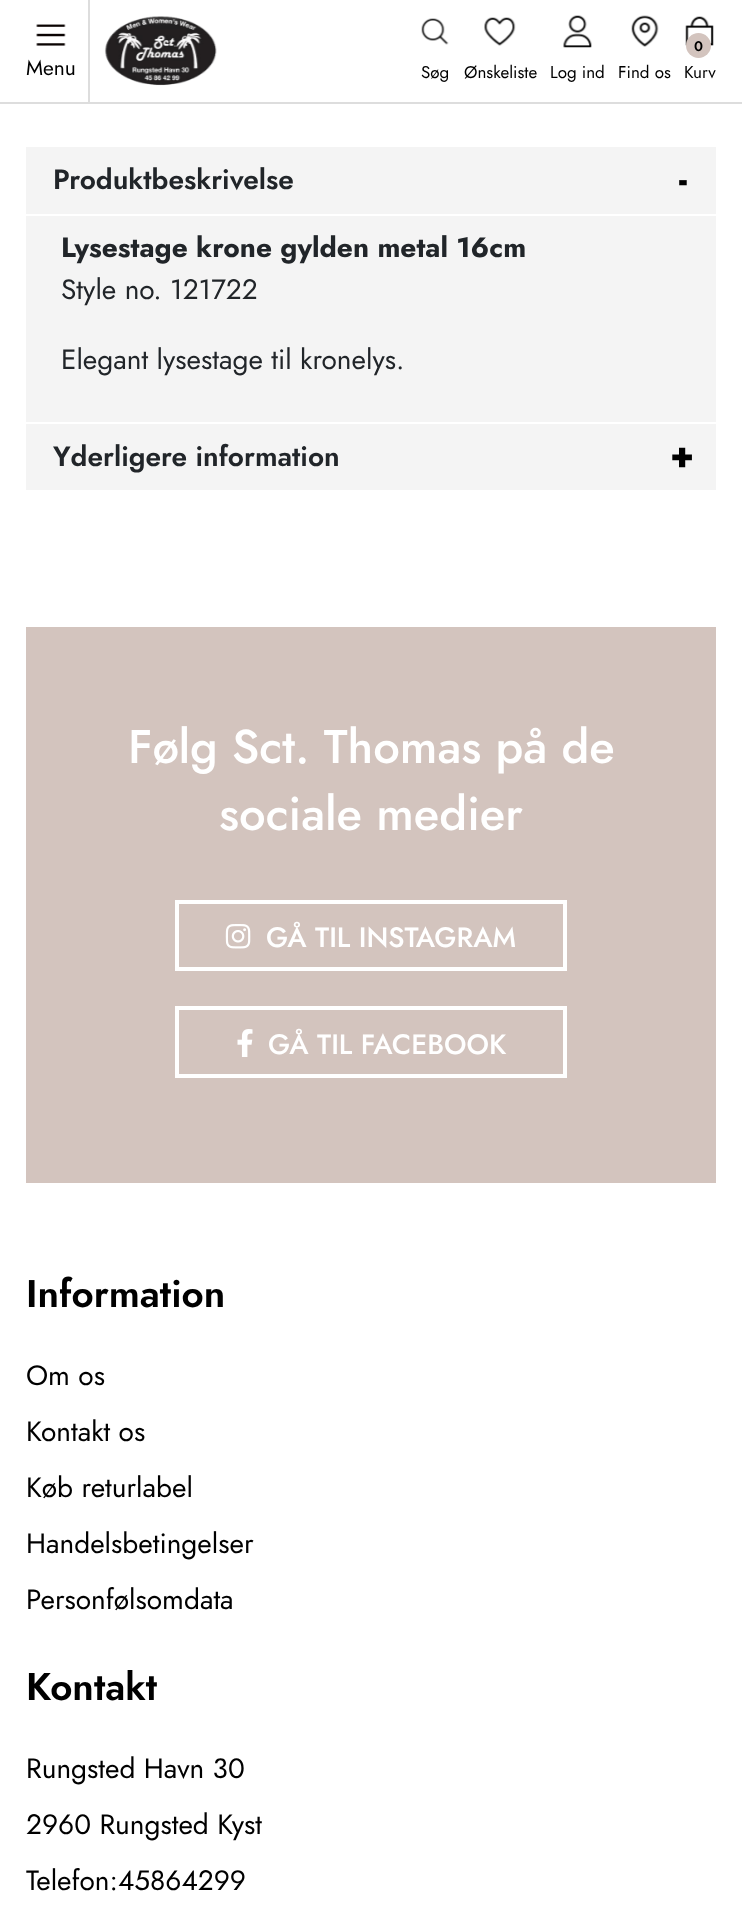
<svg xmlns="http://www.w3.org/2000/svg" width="742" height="1909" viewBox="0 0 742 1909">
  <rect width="100%" height="100%" fill="rgb(255,255,255)"/>
  <rect x="0" y="102" width="742" height="2" fill="rgb(221,221,221)"/>
  <rect x="88" y="0" width="2" height="102" fill="rgb(221,221,221)"/>
  <image x="36" y="24" width="30" height="22" href="pic1.png"/>
  <text x="26" y="75" font-family="Jost" font-size="21" fill="rgb(0,0,0)">Menu</text>
  <image x="104" y="16" width="113" height="70" href="pic2.png"/>
  <image x="421" y="18" width="28" height="27" href="pic3.png"/>
  <text x="421" y="78" font-family="Jost" font-size="17" fill="rgb(0,0,0)">Søg</text>
  <image x="484" y="17" width="32" height="29" href="pic4.png"/>
  <text x="464" y="78" font-family="Jost" font-size="17" fill="rgb(0,0,0)">Ønskeliste</text>
  <image x="563" y="15" width="29" height="33" href="pic5.png"/>
  <text x="550" y="78" font-family="Jost" font-size="17" fill="rgb(0,0,0)">Log ind</text>
  <image x="631" y="15" width="28" height="32" href="pic6.png"/>
  <text x="618" y="78" font-family="Jost" font-size="17" fill="rgb(0,0,0)">Find os</text>
  <image x="685" y="16" width="29" height="30" href="pic7.png"/>
  <circle cx="698.5" cy="45.5" r="12.5" fill="rgb(211,196,190)"/>
  <text x="694" y="51" font-family="Jost" font-size="14" font-weight="600" fill="rgb(0,0,0)">0</text>
  <text x="684" y="78" font-family="Jost" font-size="17" fill="rgb(0,0,0)">Kurv</text>
  <rect x="26" y="147" width="690" height="67" fill="rgb(244,244,244)"/>
  <text x="53" y="189" font-family="Jost" font-size="28" font-weight="600" fill="rgb(33,37,41)">Produktbeskrivelse</text>
  <text x="679" y="191" font-family="Jost" font-size="35" font-weight="800" fill="rgb(0,0,0)">-</text>
  <rect x="26" y="216" width="690" height="206" fill="rgb(244,244,244)"/>
  <text x="61" y="257" font-family="Jost" font-size="28" font-weight="bold" fill="rgb(33,37,41)">Lysestage krone gylden metal 16cm</text>
  <g font-family="Jost" font-size="28" fill="rgb(33,37,41)">
    <text x="61" y="299">Style no. 121722</text>
    <text x="61" y="369">Elegant lysestage til kronelys.</text>
  </g>
  <rect x="26" y="424" width="690" height="66" fill="rgb(244,244,244)"/>
  <text x="53" y="466" font-family="Jost" font-size="28" font-weight="600" fill="rgb(33,37,41)">Yderligere information</text>
  <text x="670" y="467" font-family="Jost" font-size="35" font-weight="800" fill="rgb(0,0,0)">+</text>
  <rect x="26" y="627" width="690" height="556" fill="rgb(211,196,190)"/>
  <g font-family="Jost" font-size="47.25" font-weight="500" fill="rgb(255,255,255)">
    <text x="128" y="763">Følg Sct. Thomas på de</text>
    <text x="219" y="830">sociale medier</text>
  </g>
  <rect x="177" y="902" width="388" height="67" fill="none" stroke="rgb(255,255,255)" stroke-width="4"/>
  <image x="225" y="924" width="26" height="25" href="pic8.png"/>
  <text x="266" y="947" font-family="Jost" font-size="28" font-weight="500" fill="rgb(255,255,255)">GÅ TIL INSTAGRAM</text>
  <rect x="177" y="1008" width="388" height="68" fill="none" stroke="rgb(255,255,255)" stroke-width="4"/>
  <image x="237" y="1029" width="16" height="28" href="pic9.png"/>
  <text x="268" y="1054" font-family="Jost" font-size="28" font-weight="500" fill="rgb(255,255,255)">GÅ TIL FACEBOOK</text>
  <text x="26" y="1307" font-family="Jost" font-size="38.5" font-weight="600" fill="rgb(0,0,0)">Information</text>
  <g font-family="Jost" font-size="28" fill="rgb(0,0,0)">
    <text x="26" y="1385">Om os</text>
    <text x="26" y="1441">Kontakt os</text>
    <text x="26" y="1497">Køb returlabel</text>
    <text x="26" y="1553">Handelsbetingelser</text>
    <text x="26" y="1609">Personfølsomdata</text>
  </g>
  <text x="26" y="1700" font-family="Jost" font-size="38.5" font-weight="600" fill="rgb(0,0,0)">Kontakt</text>
  <g font-family="Jost" font-size="28" fill="rgb(0,0,0)">
    <text x="26" y="1778">Rungsted Havn 30</text>
    <text x="26" y="1834">2960 Rungsted Kyst</text>
    <text x="26" y="1890">Telefon:45864299</text>
  </g>
</svg>
